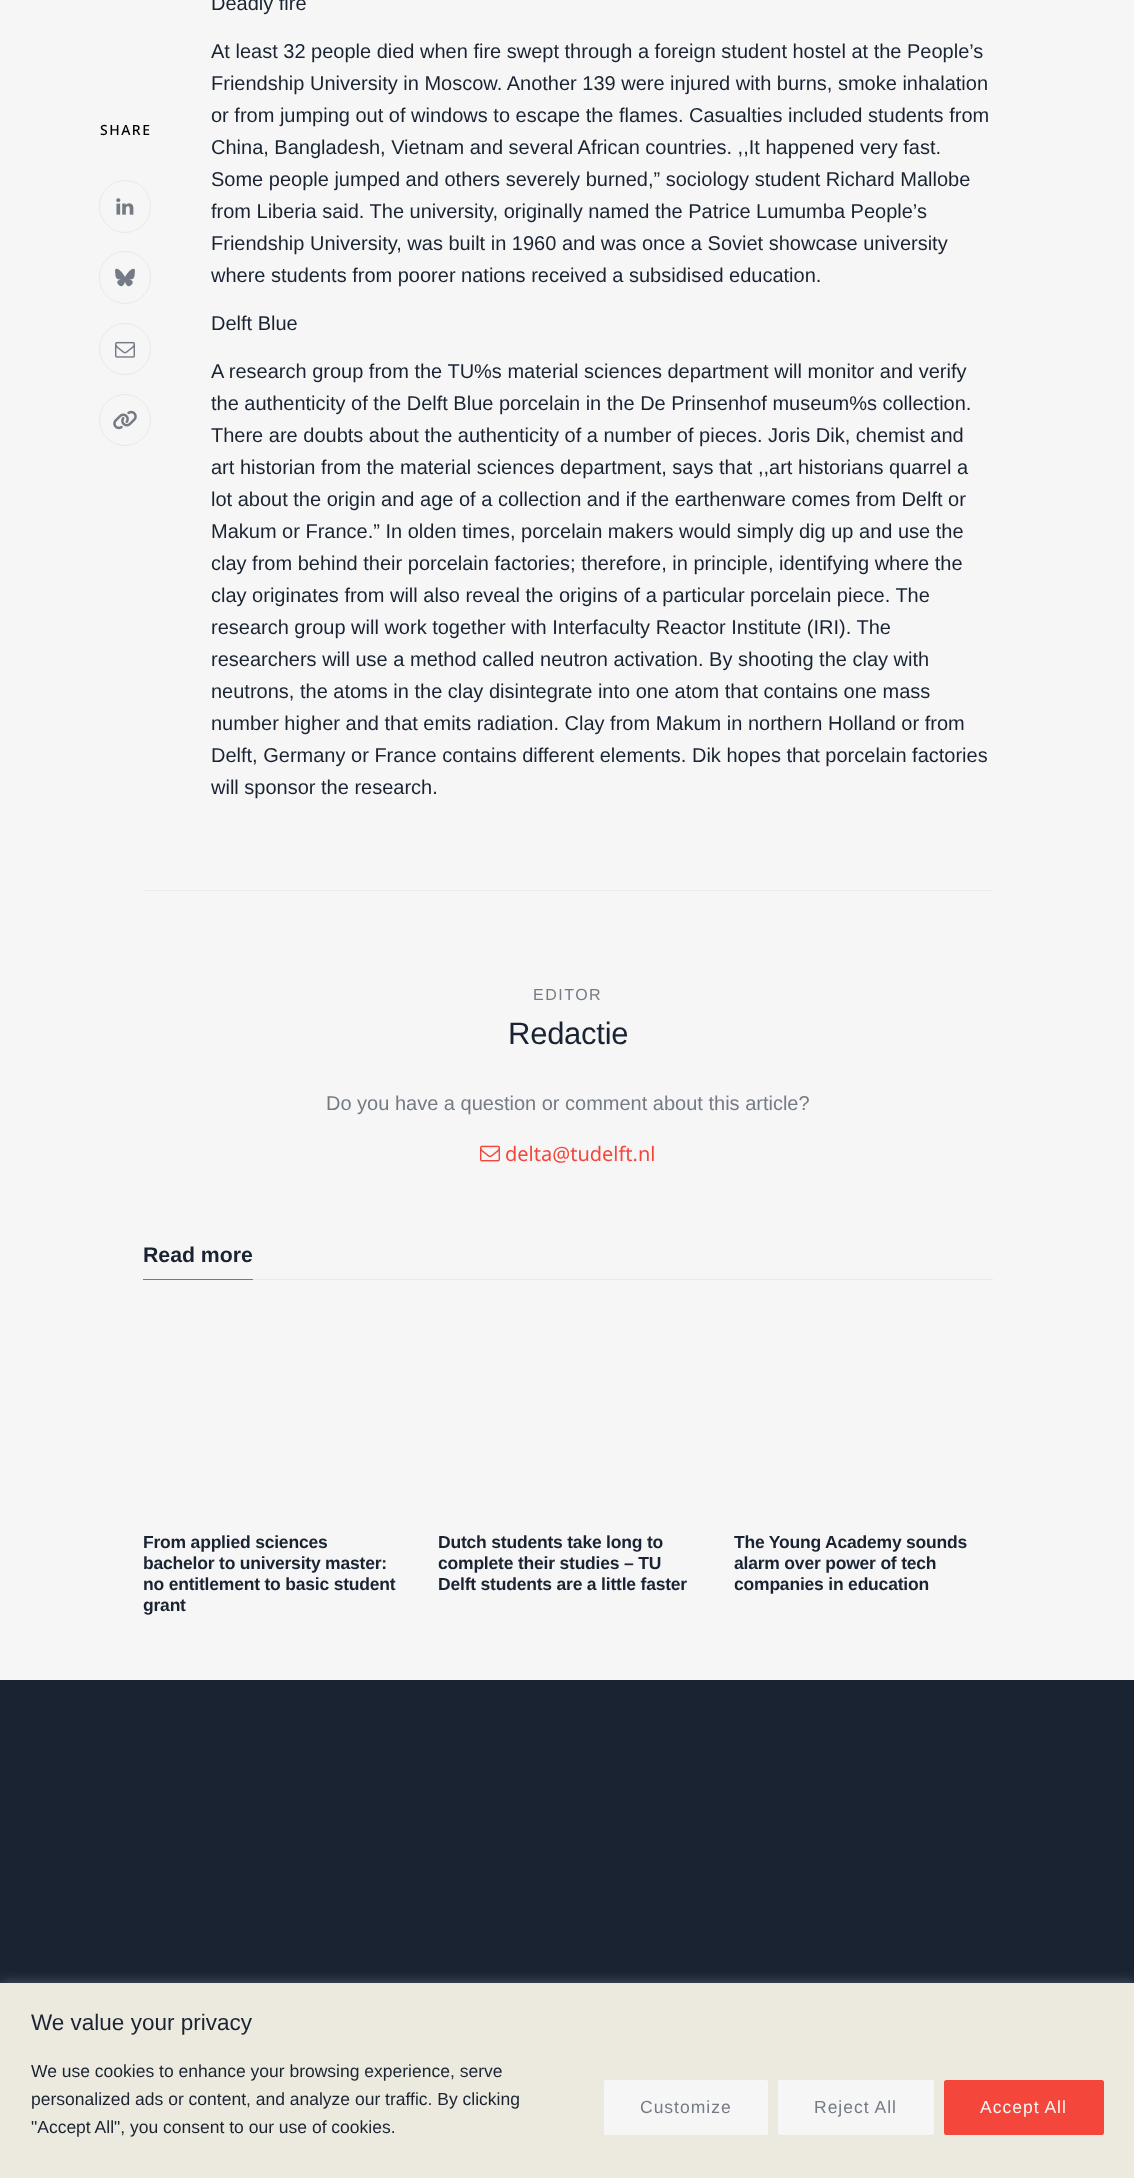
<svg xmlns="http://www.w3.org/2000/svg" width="1134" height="2178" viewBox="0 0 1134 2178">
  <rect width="100%" height="100%" fill="rgb(246,246,246)"/>
  <text x="100" y="135" font-family="Noto Sans" font-size="14" font-weight="500" letter-spacing="1.5" fill="rgb(0,0,0)">SHARE</text>
  <rect x="99.5" y="180.5" width="51" height="52" rx="25.5" fill="none" stroke="rgb(236,234,222)"/>
  <image x="116" y="198" width="18" height="17" href="pic1.png"/>
  <rect x="99.5" y="251.5" width="51" height="52" rx="25.5" fill="none" stroke="rgb(236,234,222)"/>
  <image x="115" y="268" width="20" height="19" href="pic2.png"/>
  <circle cx="125" cy="349" r="25.5" fill="none" stroke="rgb(236,234,222)"/>
  <image x="115" y="341" width="20" height="17" href="pic3.png"/>
  <circle cx="125" cy="420" r="25.5" fill="none" stroke="rgb(236,234,222)"/>
  <image x="113" y="410" width="24" height="20" href="pic4.png"/>
  <g font-family="Liberation Sans" font-size="20" fill="rgb(25,35,50)">
    <text x="211" y="10">Deadly fire</text>
    <text>
      <tspan x="211" y="58">At least 32 people died when fire swept through a foreign student hostel at the People’s</tspan>
      <tspan x="211" y="90">Friendship University in Moscow. Another 139 were injured with burns, smoke inhalation</tspan>
      <tspan x="211" y="122">or from jumping out of windows to escape the flames. Casualties included students from</tspan>
      <tspan x="211" y="154">China, Bangladesh, Vietnam and several African countries. ,,It happened very fast.</tspan>
      <tspan x="211" y="186">Some people jumped and others severely burned,” sociology student Richard Mallobe</tspan>
      <tspan x="211" y="218">from Liberia said. The university, originally named the Patrice Lumumba People’s</tspan>
      <tspan x="211" y="250">Friendship University, was built in 1960 and was once a Soviet showcase university</tspan>
      <tspan x="211" y="282">where students from poorer nations received a subsidised education.</tspan>
    </text>
    <text x="211" y="330">Delft Blue</text>
    <text>
      <tspan x="211" y="378">A research group from the TU%s material sciences department will monitor and verify</tspan>
      <tspan x="211" y="410">the authenticity of the Delft Blue porcelain in the De Prinsenhof museum%s collection.</tspan>
      <tspan x="211" y="442">There are doubts about the authenticity of a number of pieces. Joris Dik, chemist and</tspan>
      <tspan x="211" y="474">art historian from the material sciences department, says that ,,art historians quarrel a</tspan>
      <tspan x="211" y="506">lot about the origin and age of a collection and if the earthenware comes from Delft or</tspan>
      <tspan x="211" y="538">Makum or France.” In olden times, porcelain makers would simply dig up and use the</tspan>
      <tspan x="211" y="570">clay from behind their porcelain factories; therefore, in principle, identifying where the</tspan>
      <tspan x="211" y="602">clay originates from will also reveal the origins of a particular porcelain piece. The</tspan>
      <tspan x="211" y="634">research group will work together with Interfaculty Reactor Institute (IRI). The</tspan>
      <tspan x="211" y="666">researchers will use a method called neutron activation. By shooting the clay with</tspan>
      <tspan x="211" y="698">neutrons, the atoms in the clay disintegrate into one atom that contains one mass</tspan>
      <tspan x="211" y="730">number higher and that emits radiation. Clay from Makum in northern Holland or from</tspan>
      <tspan x="211" y="762">Delft, Germany or France contains different elements. Dik hopes that porcelain factories</tspan>
      <tspan x="211" y="794">will sponsor the research.</tspan>
    </text>
  </g>
  <rect x="143" y="890" width="850" height="1" fill="rgb(235,235,235)"/>
  <text x="533" y="1000" font-family="Liberation Sans" font-size="16" letter-spacing="1.5" fill="rgb(117,123,132)">EDITOR</text>
  <text x="508" y="1044" font-family="Liberation Sans" font-size="31" letter-spacing="-0.25" fill="rgb(25,35,50)">Redactie</text>
  <text x="326" y="1110" font-family="Liberation Sans" font-size="20" fill="rgb(117,123,132)">Do you have a question or comment about this article?</text>
  <image x="480" y="1145" width="20" height="17" href="pic5.png"/>
  <text x="505" y="1161" font-family="Noto Sans" font-size="20" fill="rgb(245,70,60)">delta@tudelft.nl</text>
  <rect x="253" y="1279" width="740" height="1" fill="rgb(232,233,234)"/>
  <rect x="143" y="1279" width="110" height="1" fill="rgb(245,70,60)"/>
  <text x="143" y="1262" font-family="Liberation Sans" font-size="21.25" font-weight="bold" fill="rgb(25,35,50)">Read more</text>
  <g font-family="Liberation Sans" font-size="17.5" font-weight="bold" letter-spacing="-0.2" fill="rgb(25,35,50)">
    <text>
      <tspan x="143" y="1548">From applied sciences</tspan>
      <tspan x="143" y="1569">bachelor to university master:</tspan>
      <tspan x="143" y="1590">no entitlement to basic student</tspan>
      <tspan x="143" y="1611">grant</tspan>
    </text>
    <text>
      <tspan x="438" y="1548">Dutch students take long to</tspan>
      <tspan x="438" y="1569">complete their studies – TU</tspan>
      <tspan x="438" y="1590">Delft students are a little faster</tspan>
    </text>
    <text>
      <tspan x="734" y="1548">The Young Academy sounds</tspan>
      <tspan x="734" y="1569">alarm over power of tech</tspan>
      <tspan x="734" y="1590">companies in education</tspan>
    </text>
  </g>
  <rect x="0" y="1680" width="1134" height="303" fill="rgb(25,35,50)"/>
  <rect x="0" y="1981" width="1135" height="197" fill="rgba(172,171,171,0.3)" filter="blur(6px)"/>
  <rect x="0" y="1983" width="1134" height="195" fill="rgb(236,234,222)"/>
  <text x="31" y="2030" font-family="Liberation Sans" font-size="22.5" fill="rgb(25,35,50)">We value your privacy</text>
  <g font-family="Liberation Sans" font-size="17.5" fill="rgb(25,35,50)">
    <text>
      <tspan x="31" y="2077">We use cookies to enhance your browsing experience, serve</tspan>
      <tspan x="31" y="2105">personalized ads or content, and analyze our traffic. By clicking</tspan>
      <tspan x="31" y="2133">"Accept All", you consent to our use of cookies.</tspan>
    </text>
  </g>
  <rect x="605.5" y="2081.5" width="161" height="52" rx="1" fill="rgb(246,246,246)" stroke="rgb(246,246,246)" stroke-width="3"/>
  <text x="640" y="2113" font-family="Liberation Sans" font-size="17.5" letter-spacing="1" fill="rgb(117,123,132)">Customize</text>
  <rect x="779.5" y="2081.5" width="153" height="52" rx="1" fill="rgb(246,246,246)" stroke="rgb(246,246,246)" stroke-width="3"/>
  <text x="814" y="2113" font-family="Liberation Sans" font-size="17.5" letter-spacing="1" fill="rgb(117,123,132)">Reject All</text>
  <rect x="945.5" y="2081.5" width="157" height="52" rx="1" fill="rgb(245,70,60)" stroke="rgb(245,70,60)" stroke-width="3"/>
  <text x="980" y="2113" font-family="Liberation Sans" font-size="17.5" letter-spacing="1" fill="rgb(246,246,246)">Accept All</text>
</svg>
